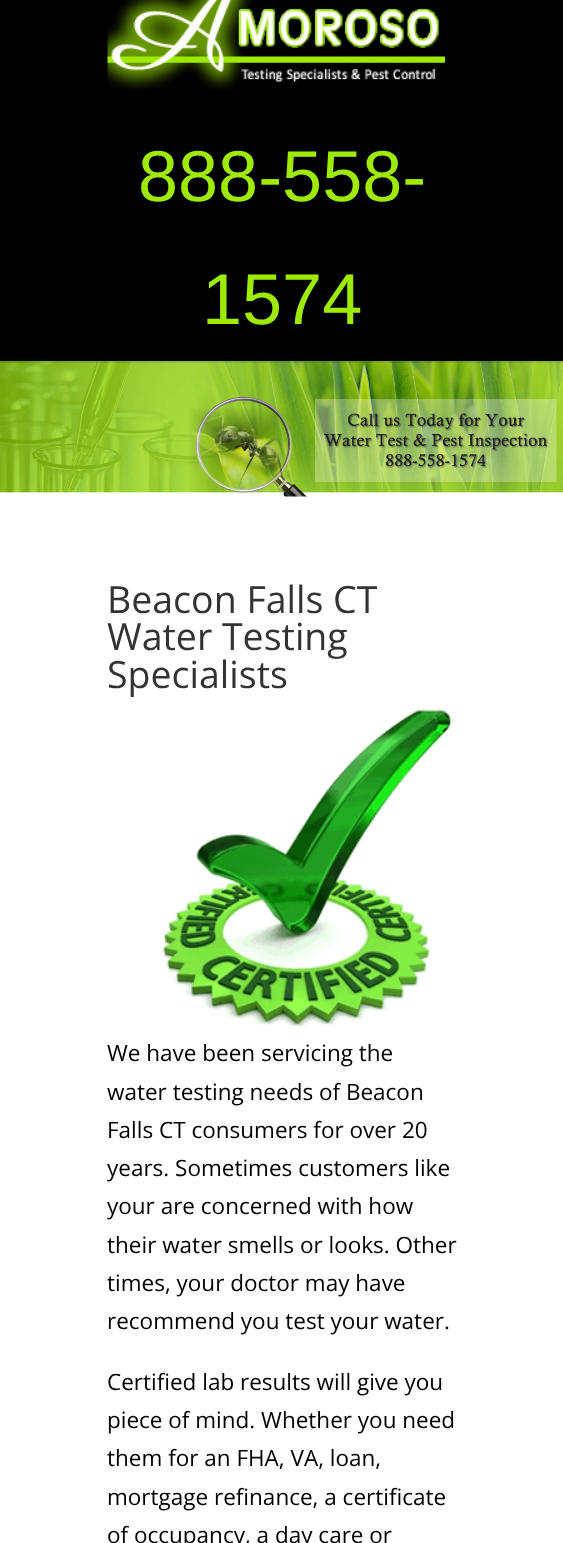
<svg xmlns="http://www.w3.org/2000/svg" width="563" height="1543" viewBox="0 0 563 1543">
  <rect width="100%" height="100%" fill="rgb(255,255,255)"/>
  <image x="0" y="361" width="563" height="136" href="pic2.png"/>
  <path d="M0 361V363H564V-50V361Z" fill="rgba(0,0,0,0.1)"/>
  <rect x="0" y="0" width="563" height="361" fill="rgb(0,0,0)"/>
  <image x="107" y="0" width="338" height="90" href="pic1.png"/>
  <g font-family="Liberation Sans" font-size="72" fill="rgb(158,234,1)">
    <text x="138" y="201">888-558-</text>
    <text x="202" y="324">1574</text>
  </g>
  <g font-family="Open Sans" font-size="37.5" fill="rgb(51,51,51)">
    <text>
      <tspan x="107" y="613">Beacon Falls CT</tspan>
      <tspan x="107" y="650">Water Testing</tspan>
      <tspan x="107" y="688">Specialists</tspan>
    </text>
  </g>
  <image x="162" y="709" width="290" height="319" href="pic3.png"/>
  <g font-family="Open Sans" font-size="22.5" fill="rgb(0,0,0)">
    <text>
      <tspan x="107" y="1061">We have been servicing the</tspan>
      <tspan x="107" y="1100">water testing needs of Beacon</tspan>
      <tspan x="107" y="1138">Falls CT consumers for over 20</tspan>
      <tspan x="107" y="1176">years. Sometimes customers like</tspan>
      <tspan x="107" y="1214">your are concerned with how</tspan>
      <tspan x="107" y="1253">their water smells or looks. Other</tspan>
      <tspan x="107" y="1291">times, your doctor may have</tspan>
      <tspan x="107" y="1329">recommend you test your water.</tspan>
    </text>
    <text>
      <tspan x="107" y="1390">Certified lab results will give you</tspan>
      <tspan x="107" y="1428">piece of mind. Whether you need</tspan>
      <tspan x="107" y="1466">them for an FHA, VA, loan,</tspan>
      <tspan x="107" y="1505">mortgage refinance, a certificate</tspan>
      <tspan x="107" y="1543">of occupancy, a day care or</tspan>
    </text>
  </g>
</svg>
